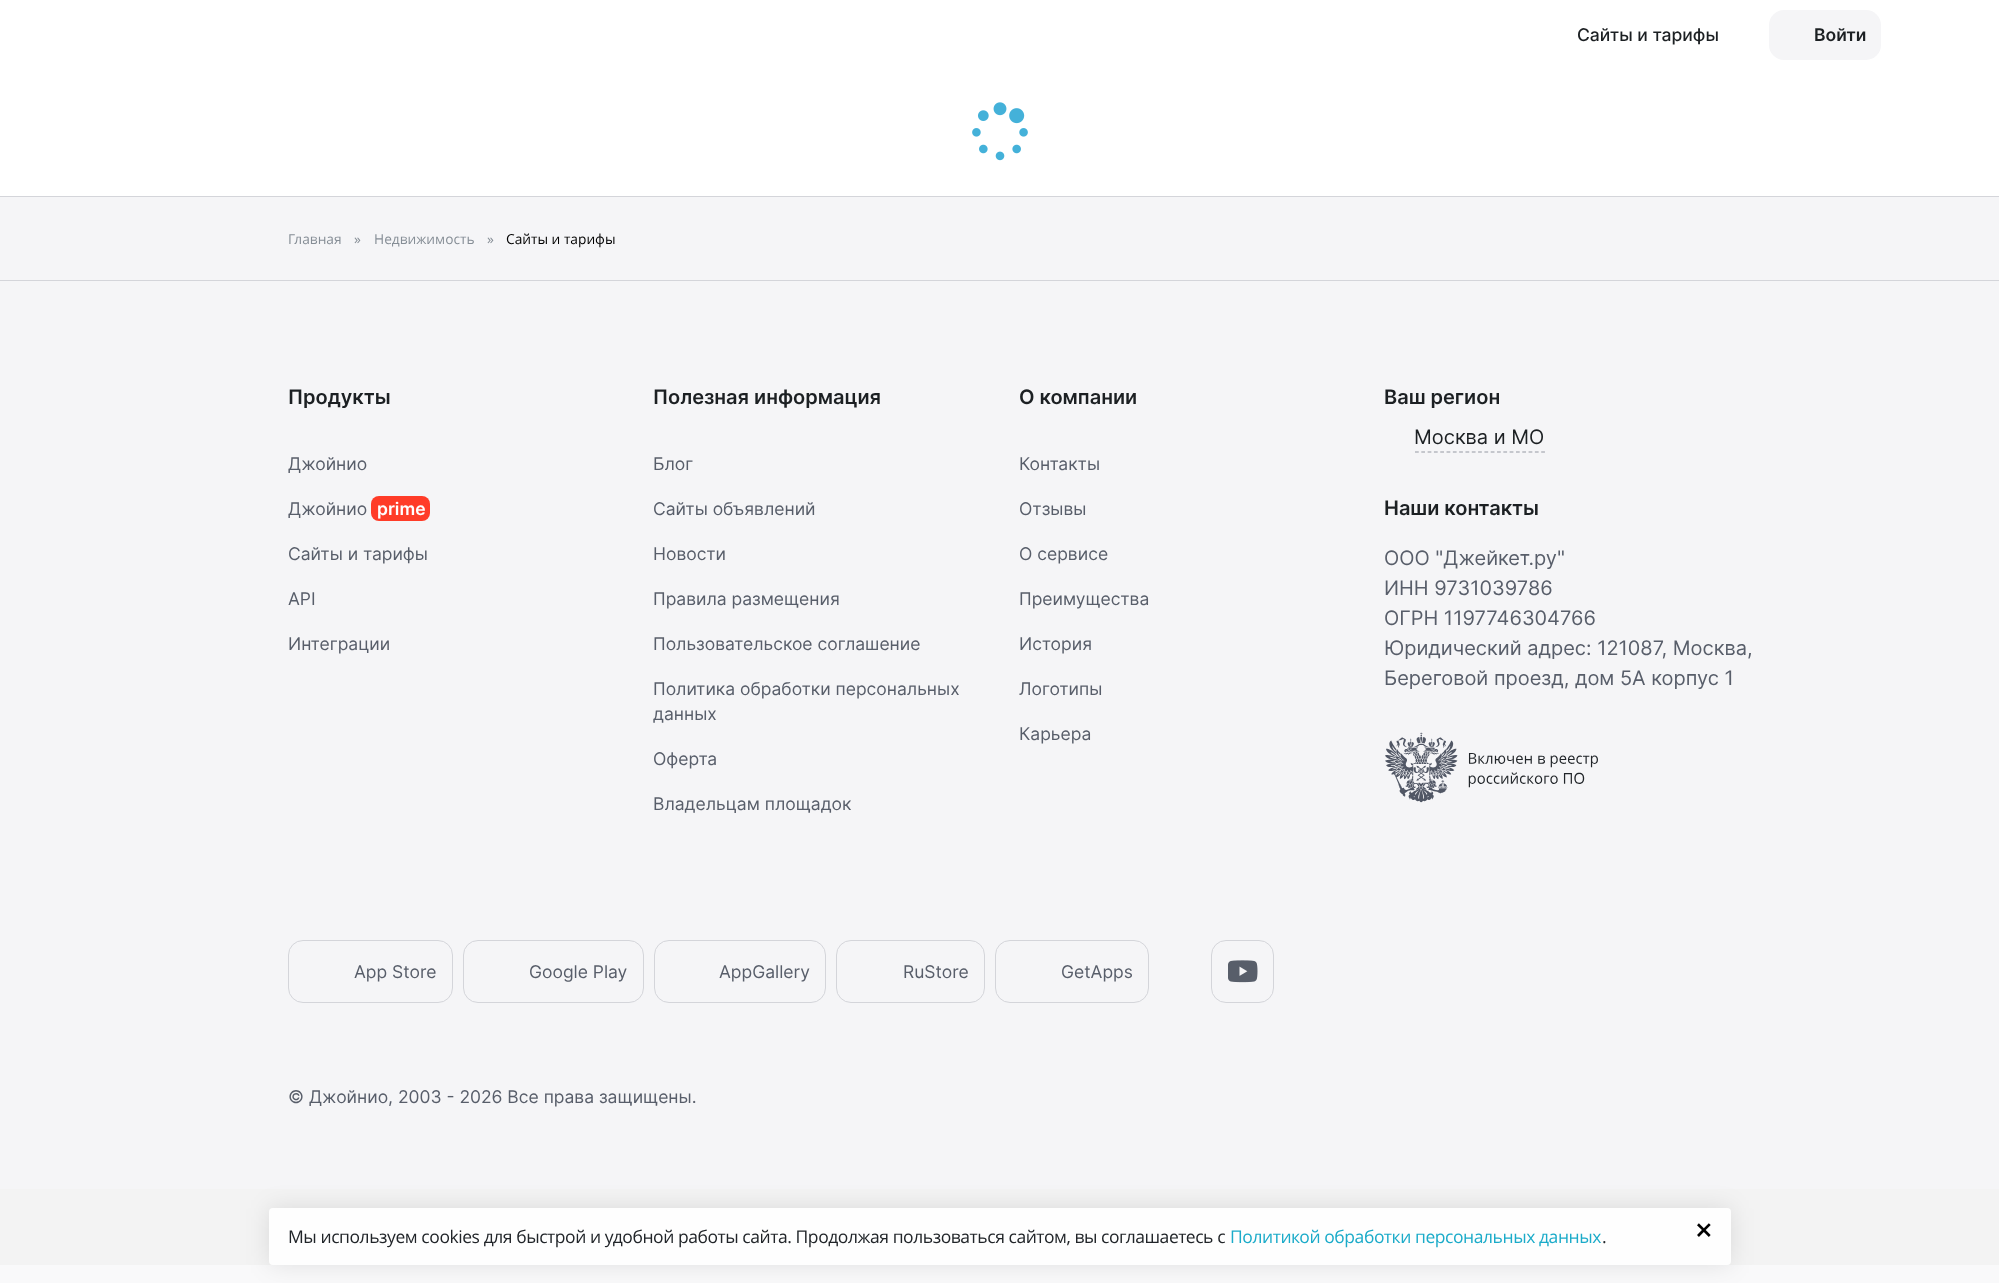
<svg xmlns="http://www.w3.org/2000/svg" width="1999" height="1283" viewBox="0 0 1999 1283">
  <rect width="100%" height="100%" fill="rgb(249,249,250)"/>
  <rect x="0" y="0" width="1999" height="196" fill="rgb(255,255,255)"/>
  <text x="1577" y="41" font-family="Inter" font-size="17.5" font-weight="500" fill="rgb(28,32,35)">Сайты и тарифы</text>
  <rect x="1769" y="10" width="112" height="50" rx="15" fill="rgb(245,245,247)"/>
  <text x="1814" y="41" font-family="Inter" font-size="17.5" font-weight="600" fill="rgb(28,32,35)">Войти</text>
  <rect x="0" y="1189" width="1999" height="76" fill="rgb(243,243,243)"/>
  <image x="972" y="102" width="56" height="59" href="pic1.png"/>
  <rect x="0" y="197" width="1999" height="992" fill="rgb(245,245,247)"/>
  <rect x="0" y="196" width="1999" height="1" fill="rgb(212,213,218)"/>
  <rect x="0" y="280" width="1999" height="1" fill="rgb(212,213,218)"/>
  <g font-family="Open Sans" font-size="13.75" fill="rgb(134,142,150)">
    <text x="288" y="244">Главная</text>
    <text x="354" y="244">»</text>
    <text x="374" y="244">Недвижимость</text>
    <text x="487" y="244">»</text>
  </g>
  <text x="506" y="244" font-family="Open Sans" font-size="13.75" fill="rgb(0,0,0)">Сайты и тарифы</text>
  <text x="288" y="404" font-family="Inter" font-size="20" font-weight="600" fill="rgb(28,32,35)">Продукты</text>
  <g font-family="Inter" font-size="17.5" fill="rgb(88,94,106)">
    <text x="288" y="470">Джойнио</text>
    <text x="288" y="515">Джойнио</text>
  </g>
  <rect x="371" y="496" width="59" height="25" rx="8" fill="rgb(255,60,40)"/>
  <text x="377" y="515" font-family="Inter" font-size="17.5" font-weight="600" fill="rgb(255,255,255)">prime</text>
  <g font-family="Inter" font-size="17.5" fill="rgb(88,94,106)">
    <text x="288" y="560">Cайты и тарифы</text>
    <text x="288" y="605">API</text>
    <text x="288" y="650">Интеграции</text>
  </g>
  <text x="653" y="404" font-family="Inter" font-size="20" font-weight="600" fill="rgb(28,32,35)">Полезная информация</text>
  <g font-family="Inter" font-size="17.5" fill="rgb(88,94,106)">
    <text x="653" y="470">Блог</text>
    <text x="653" y="515">Сайты объявлений</text>
    <text x="653" y="560">Новости</text>
    <text x="653" y="605">Правила размещения</text>
    <text x="653" y="650">Пользовательское соглашение</text>
    <text>
      <tspan x="653" y="695">Политика обработки персональных</tspan>
      <tspan x="653" y="720">данных</tspan>
    </text>
    <text x="653" y="765">Оферта</text>
    <text x="653" y="810">Владельцам площадок</text>
  </g>
  <text x="1019" y="404" font-family="Inter" font-size="20" font-weight="600" fill="rgb(28,32,35)">О компании</text>
  <g font-family="Inter" font-size="17.5" fill="rgb(88,94,106)">
    <text x="1019" y="470">Контакты</text>
    <text x="1019" y="515">Отзывы</text>
    <text x="1019" y="560">О сервисе</text>
    <text x="1019" y="605">Преимущества</text>
    <text x="1019" y="650">История</text>
    <text x="1019" y="695">Логотипы</text>
    <text x="1019" y="740">Карьера</text>
  </g>
  <text x="1384" y="404" font-family="Inter" font-size="20" font-weight="600" fill="rgb(28,32,35)">Ваш регион</text>
  <path d="M1415 452H1545" fill="none" stroke="rgb(150,153,163)" stroke-width="1.2" stroke-dasharray="3.75 2.56"/>
  <text x="1414" y="444" font-family="Inter" font-size="20" fill="rgb(28,32,35)">Москва и МО</text>
  <text x="1384" y="515" font-family="Inter" font-size="20" font-weight="600" fill="rgb(28,32,35)">Наши контакты</text>
  <g font-family="Inter" font-size="20" fill="rgb(88,94,106)">
    <text>
      <tspan x="1384" y="565">ООО "Джейкет.ру"</tspan>
      <tspan x="1384" y="595">ИНН 9731039786</tspan>
      <tspan x="1384" y="625">ОГРН 1197746304766</tspan>
      <tspan x="1384" y="655">Юридический адрес: 121087, Москва,</tspan>
      <tspan x="1384" y="685">Береговой проезд, дом 5А корпус 1</tspan>
    </text>
  </g>
  <image x="1385" y="732" width="213" height="71" href="pic2.png"/>
  <rect x="288.5" y="940.5" width="164" height="62" rx="14.5" fill="none" stroke="rgb(212,213,218)"/>
  <text x="354" y="978" font-family="Inter" font-size="17.5" fill="rgb(88,94,106)">App Store</text>
  <rect x="463.5" y="940.5" width="180" height="62" rx="14.5" fill="none" stroke="rgb(212,213,218)"/>
  <text x="529" y="978" font-family="Inter" font-size="17.5" fill="rgb(88,94,106)">Google Play</text>
  <rect x="654.5" y="940.5" width="171" height="62" rx="14.5" fill="none" stroke="rgb(212,213,218)"/>
  <text x="719" y="978" font-family="Inter" font-size="17.5" fill="rgb(88,94,106)">AppGallery</text>
  <rect x="836.5" y="940.5" width="148" height="62" rx="14.5" fill="none" stroke="rgb(212,213,218)"/>
  <text x="903" y="978" font-family="Inter" font-size="17.5" fill="rgb(88,94,106)">RuStore</text>
  <rect x="995.5" y="940.5" width="153" height="62" rx="14.5" fill="none" stroke="rgb(212,213,218)"/>
  <text x="1061" y="978" font-family="Inter" font-size="17.5" fill="rgb(88,94,106)">GetApps</text>
  <rect x="1211.5" y="940.5" width="62" height="62" rx="14.5" fill="none" stroke="rgb(212,213,218)"/>
  <image x="1228" y="960" width="30" height="23" href="pic3.png"/>
  <text x="288" y="1103" font-family="Inter" font-size="17.5" fill="rgb(88,94,106)">© Джойнио, 2003 - 2026 Все права защищены.</text>
  <rect x="269" y="1208" width="1462" height="57" rx="4" fill="rgba(0,0,0,0.1)" filter="blur(12.5px)"/>
  <rect x="269" y="1208" width="1462" height="57" rx="4" fill="rgb(254,254,254)"/>
  <text x="288" y="1243" font-family="Open Sans" font-size="17.5" letter-spacing="-0.44" fill="rgb(33,37,41)">Мы используем cookies для быстрой и удобной работы сайта. Продолжая пользоваться сайтом, вы соглашаетесь с</text>
  <text x="1230" y="1243" font-family="Open Sans" font-size="17.5" letter-spacing="-0.44" fill="rgb(27,171,201)">Политикой обработки персональных данных</text>
  <text x="1602" y="1243" font-family="Open Sans" font-size="17.5" letter-spacing="-0.44" fill="rgb(33,37,41)">.</text>
  <text x="1695" y="1241" font-family="Open Sans" font-size="31" font-weight="600" letter-spacing="-1" fill="rgb(0,0,0)">×</text>
</svg>
